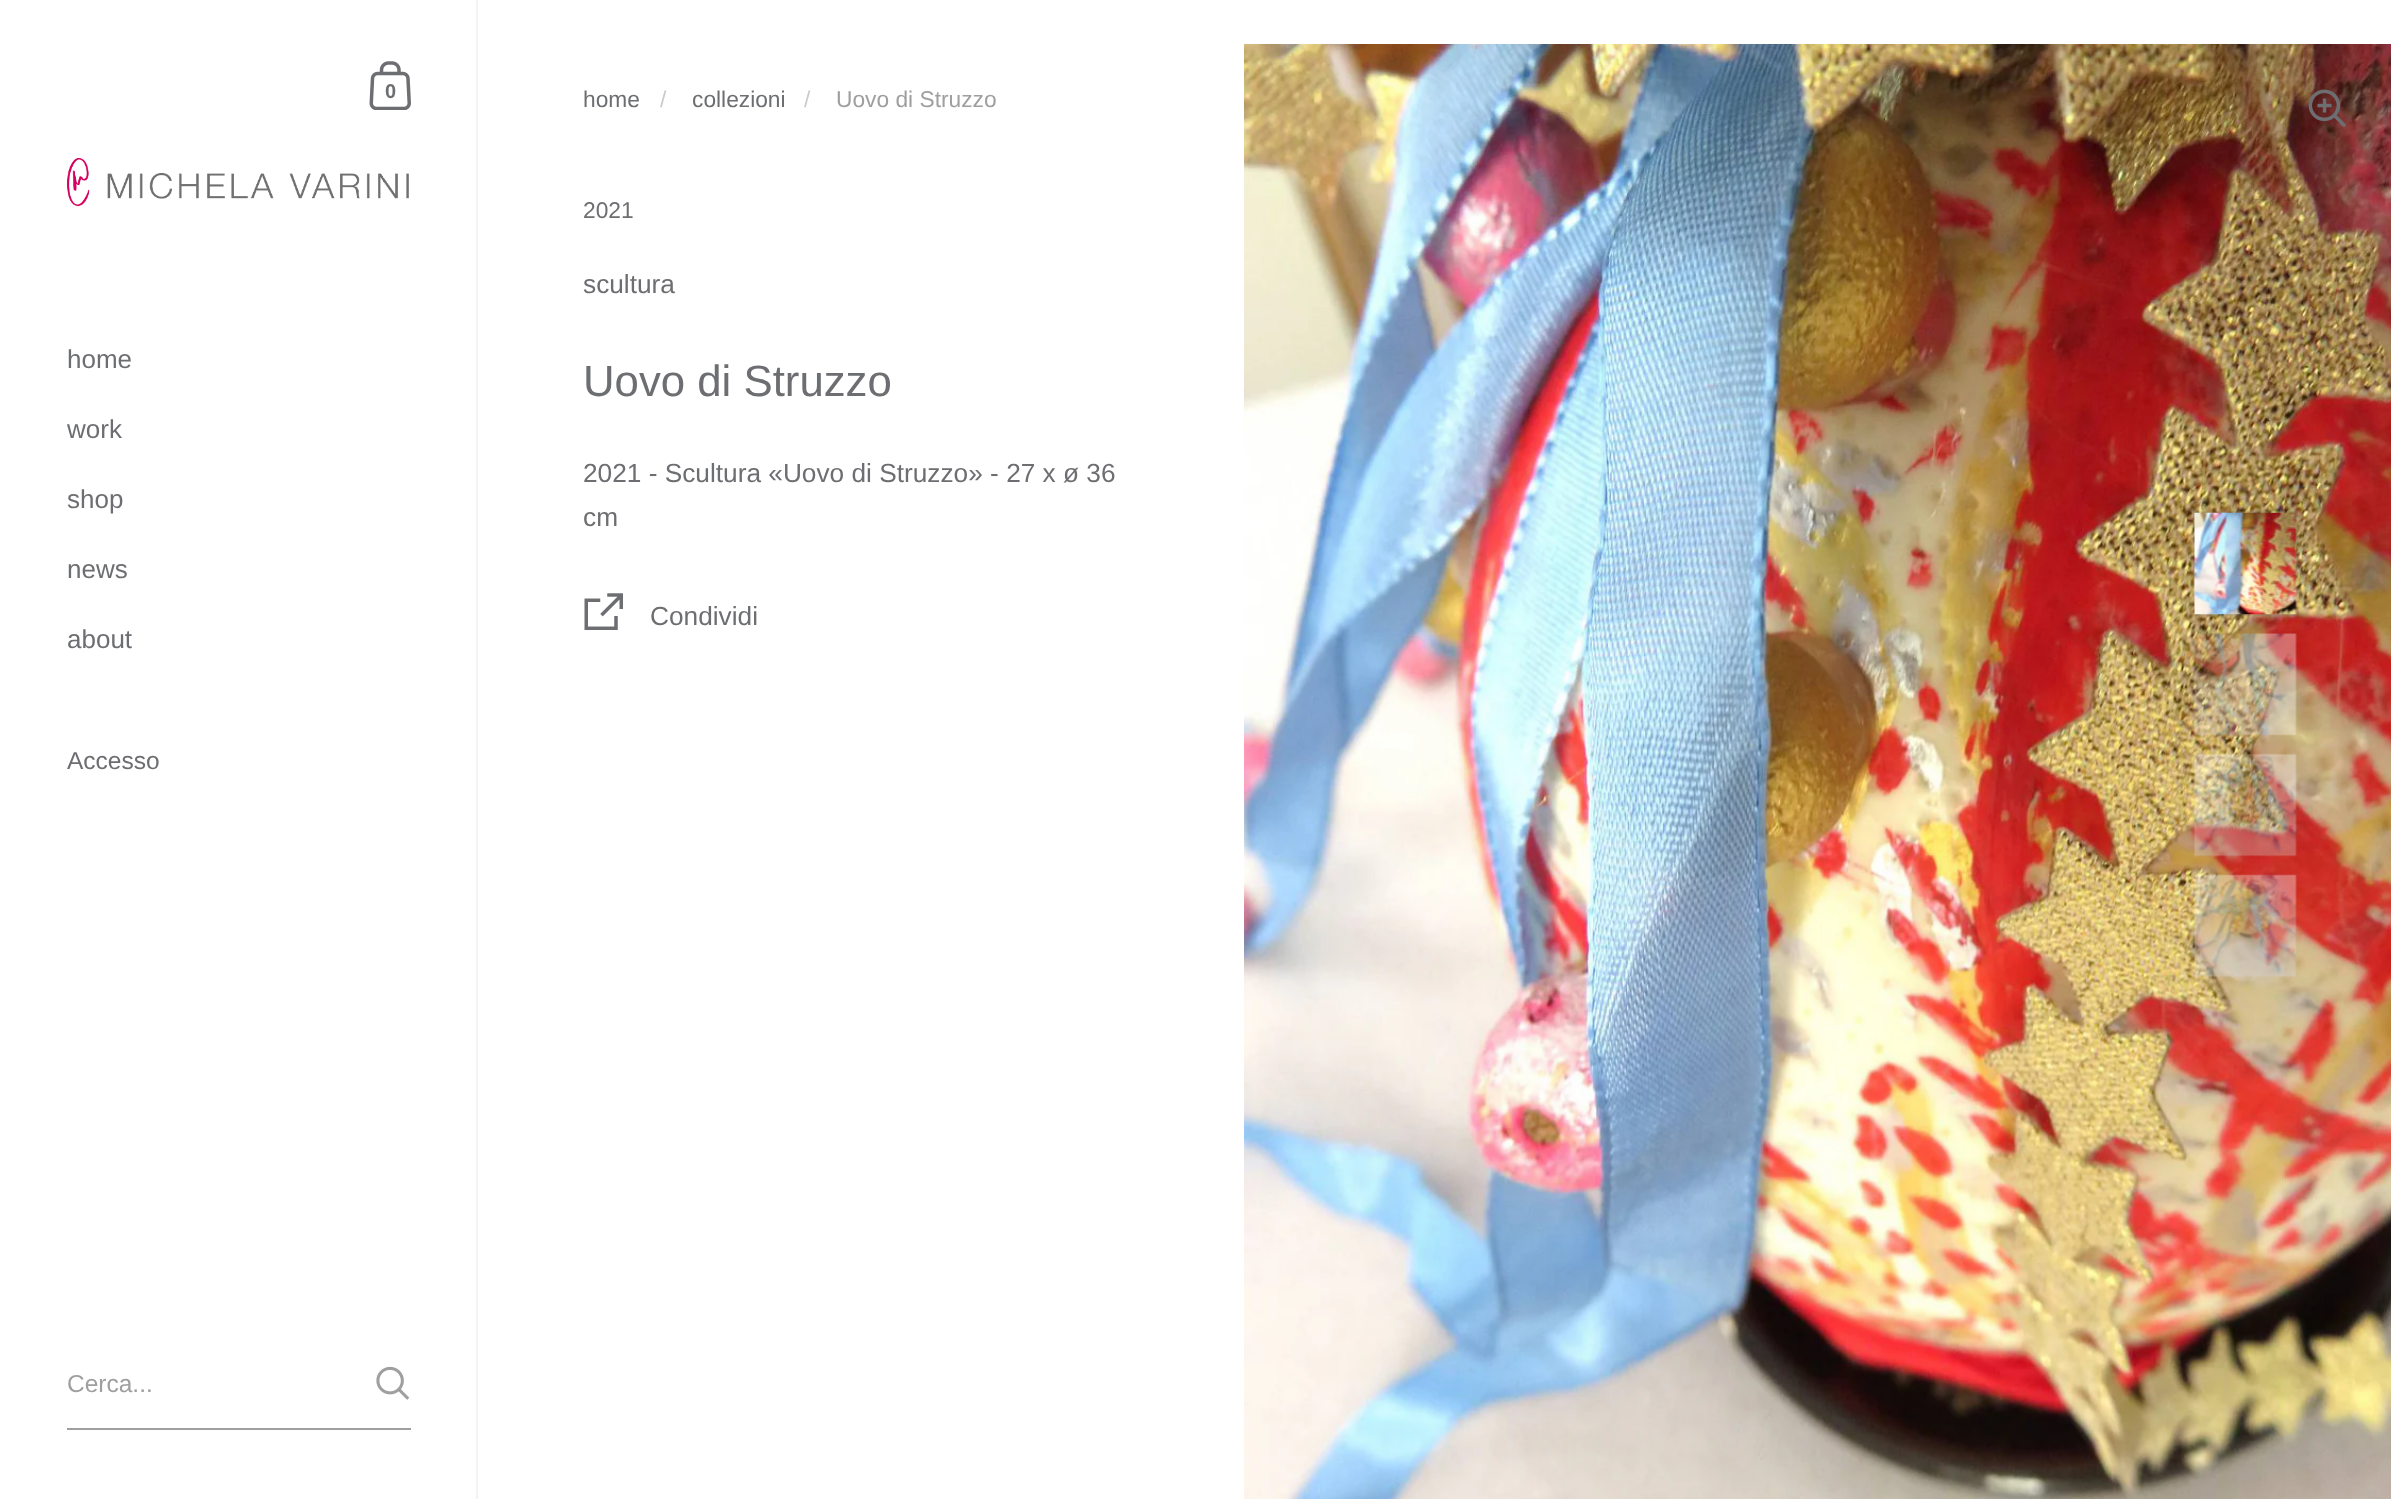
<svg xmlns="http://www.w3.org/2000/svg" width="2391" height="1499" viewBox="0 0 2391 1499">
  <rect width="100%" height="100%" fill="rgb(255,255,255)"/>
  <rect x="476" y="0" width="2" height="1499" fill="rgb(243,243,244)"/>
  <image x="369" y="61" width="42" height="49" href="pic1.png"/>
  <text x="385" y="98" font-family="Liberation Sans" font-size="20" font-weight="bold" fill="rgb(109,110,113)">0</text>
  <image x="67" y="158" width="342" height="49" href="pic2.png"/>
  <g font-family="Liberation Sans" font-size="26" fill="rgb(109,110,113)">
    <text x="67" y="368">home</text>
    <text x="67" y="438">work</text>
    <text x="67" y="508">shop</text>
    <text x="67" y="578">news</text>
    <text x="67" y="648">about</text>
  </g>
  <text x="67" y="769" font-family="Liberation Sans" font-size="24.5" fill="rgb(109,110,113)">Accesso</text>
  <rect x="67" y="1428" width="344" height="2" fill="rgb(159,159,161)"/>
  <text x="67" y="1392" font-family="Liberation Sans" font-size="24.5" fill="rgb(159,159,161)">Cerca...</text>
  <image x="376" y="1366" width="34" height="34" href="pic3.png"/>
  <text x="583" y="107" font-family="Liberation Sans" font-size="22.75" fill="rgb(109,110,113)">home</text>
  <text x="660" y="107" font-family="Liberation Sans" font-size="22.75" fill="rgb(202,203,204)">/</text>
  <text x="692" y="107" font-family="Liberation Sans" font-size="22.75" fill="rgb(109,110,113)">collezioni</text>
  <text x="804" y="107" font-family="Liberation Sans" font-size="22.75" fill="rgb(202,203,204)">/</text>
  <text x="836" y="107" font-family="Liberation Sans" font-size="22.75" fill="rgb(159,159,161)">Uovo di Struzzo</text>
  <text x="583" y="218" font-family="Liberation Sans" font-size="22.75" fill="rgb(109,110,113)">2021</text>
  <text x="583" y="293" font-family="Liberation Sans" font-size="26.25" fill="rgb(109,110,113)">scultura</text>
  <text x="583" y="396" font-family="Liberation Sans" font-size="43.75" fill="rgb(109,110,113)">Uovo di Struzzo</text>
  <g font-family="Liberation Sans" font-size="26.25" fill="rgb(109,110,113)">
    <text>
      <tspan x="583" y="482">2021 - Scultura «Uovo di Struzzo» - 27 x ø 36</tspan>
      <tspan x="583" y="526">cm</tspan>
    </text>
  </g>
  <image x="584" y="593" width="39" height="37" href="pic4.png"/>
  <text x="650" y="625" font-family="Liberation Sans" font-size="26.25" fill="rgb(109,110,113)">Condividi</text>
  <image x="1244" y="44" width="1147" height="1455" href="pic5.png"/>
  <image x="2308" y="89" width="38" height="39" href="pic6.png"/>
  <rect x="2194" y="512" width="103" height="103" fill="none" stroke="rgba(109,110,113,0.16)" stroke-width="2"/>
  <image x="2194" y="512" width="103" height="103" href="pic7.png"/>
  <image x="2194" y="633" width="103" height="103" href="pic8.png"/>
  <image x="2194" y="753" width="103" height="104" href="pic9.png"/>
  <image x="2194" y="874" width="103" height="103" href="pic10.png"/>
</svg>
